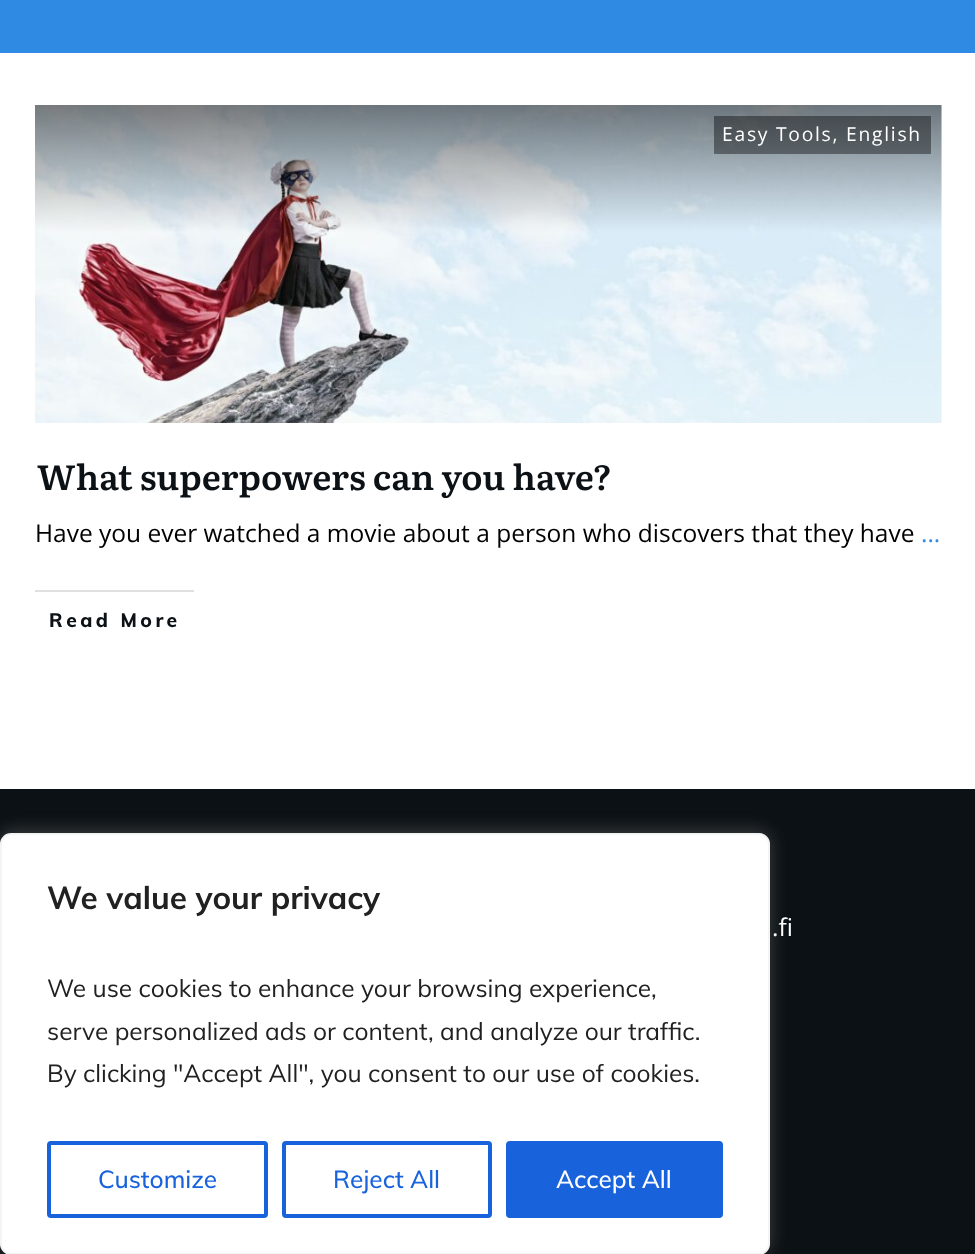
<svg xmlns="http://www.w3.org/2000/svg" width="975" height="1254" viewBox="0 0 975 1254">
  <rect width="100%" height="100%" fill="rgb(255,255,255)"/>
  <rect x="0" y="0" width="975" height="53" fill="rgb(47,138,228)"/>
  <image x="35" y="105" width="907" height="318" href="pic1.png"/>
  <rect x="714" y="116" width="217" height="38" fill="rgba(0,0,0,0.4)"/>
  <text x="722" y="141" font-family="Open Sans" font-size="19.25" letter-spacing="1.75" fill="rgb(255,255,255)">Easy Tools, English</text>
  <text x="37" y="490" font-family="Literata" font-size="35" font-weight="600" fill="rgb(12,17,21)">What superpowers can you have?</text>
  <text x="35" y="542" font-family="Open Sans" font-size="24.5" fill="rgb(0,0,0)">Have you ever watched a movie about a person who discovers that they have</text>
  <text x="921" y="542" font-family="Open Sans" font-size="24.5" fill="rgb(47,138,228)">...</text>
  <rect x="35" y="590" width="159" height="2" fill="rgb(224,224,224)"/>
  <text x="49" y="627" font-family="Muli" font-size="19.25" font-weight="800" letter-spacing="3.5" fill="rgb(12,17,21)">Read More</text>
  <rect x="0" y="789" width="975" height="465" fill="rgb(12,17,21)"/>
  <text x="772" y="936" font-family="Open Sans" font-size="24.5" fill="rgb(255,255,255)">.fi</text>
  <rect x="0" y="831" width="770" height="422" rx="11" fill="rgba(172,171,171,0.3)" filter="blur(9px)"/>
  <rect x="1" y="834" width="768" height="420" rx="10" fill="rgb(255,255,255)" stroke="rgb(244,244,244)" stroke-width="2"/>
  <text x="47" y="909" font-family="Muli" font-size="31.5" font-weight="bold" fill="rgb(33,33,33)">We value your privacy</text>
  <g font-family="Muli" font-size="24.5" fill="rgb(33,33,33)">
    <text>
      <tspan x="47" y="997">We use cookies to enhance your browsing experience,</tspan>
      <tspan x="47" y="1040">serve personalized ads or content, and analyze our traffic.</tspan>
      <tspan x="47" y="1082">By clicking "Accept All", you consent to our use of cookies.</tspan>
    </text>
  </g>
  <rect x="49" y="1143" width="217" height="73" rx="2" fill="none" stroke="rgb(24,99,220)" stroke-width="4"/>
  <text x="98" y="1188" font-family="Muli" font-size="24.5" font-weight="500" fill="rgb(24,99,220)">Customize</text>
  <rect x="284" y="1143" width="206" height="73" rx="2" fill="none" stroke="rgb(24,99,220)" stroke-width="4"/>
  <text x="333" y="1188" font-family="Muli" font-size="24.5" font-weight="500" fill="rgb(24,99,220)">Reject All</text>
  <rect x="508" y="1143" width="213" height="73" rx="2" fill="rgb(24,99,220)" stroke="rgb(24,99,220)" stroke-width="4"/>
  <text x="556" y="1188" font-family="Muli" font-size="24.5" font-weight="500" fill="rgb(255,255,255)">Accept All</text>
</svg>
